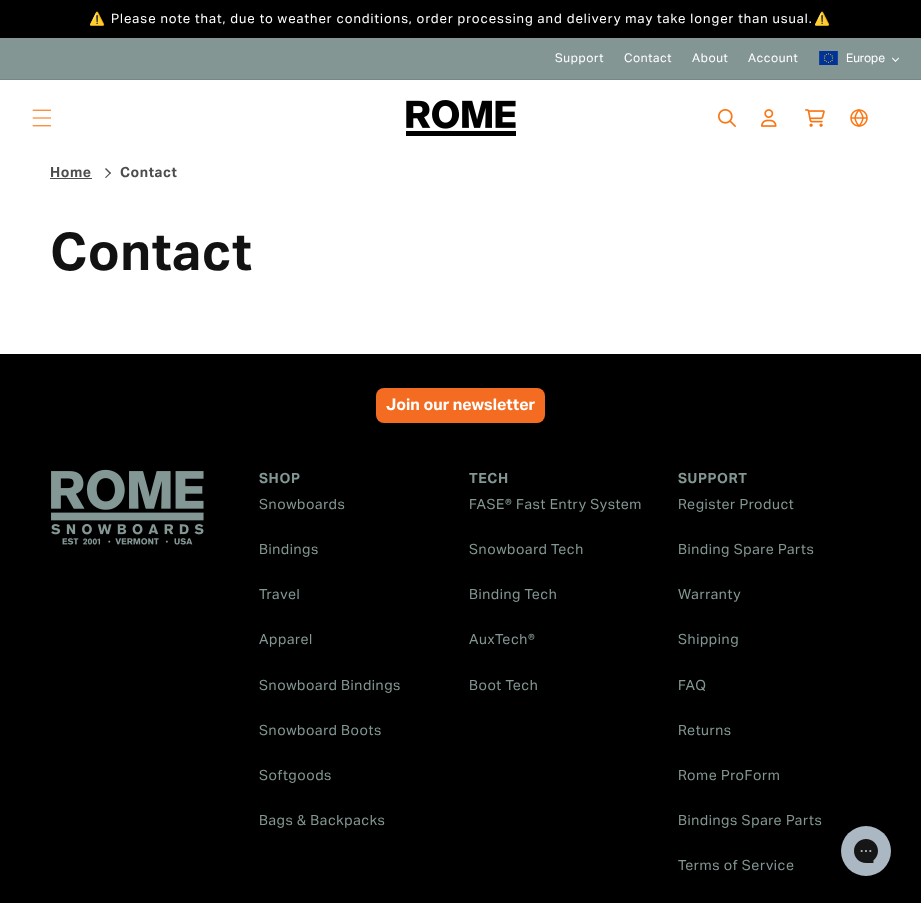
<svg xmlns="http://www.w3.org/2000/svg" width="921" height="903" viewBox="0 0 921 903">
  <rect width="100%" height="100%" fill="rgb(255,255,255)"/>
  <rect x="0" y="0" width="921" height="38" fill="rgb(0,0,0)"/>
  <text x="89" y="23" font-family="Noto Color Emoji" font-size="13" letter-spacing="1" fill="rgb(255,255,255)">⚠️</text>
  <text x="111" y="23" font-family="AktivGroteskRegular" font-size="13" letter-spacing="1" fill="rgb(255,255,255)">Please note that, due to weather conditions, order processing and delivery may take longer than usual.</text>
  <text x="814" y="23" font-family="Noto Color Emoji" font-size="13" letter-spacing="1" fill="rgb(255,255,255)">⚠️</text>
  <rect x="0" y="38" width="921" height="41" fill="rgb(131,150,148)"/>
  <rect x="0" y="79" width="921" height="1" fill="rgb(118,135,133)"/>
  <g font-family="AktivGroteskRegular" font-size="12" letter-spacing="0.6" fill="rgb(255,255,255)">
    <text x="555" y="62">Support</text>
    <text x="624" y="62">Contact</text>
    <text x="692" y="62">About</text>
    <text x="748" y="62">Account</text>
  </g>
  <image x="819" y="51" width="19" height="14" href="pic1.png"/>
  <text x="846" y="62" font-family="AktivGroteskRegular" font-size="12" fill="rgb(255,255,255)">Europe</text>
  <path d="M898.5 57.5L899 58.5L895.5 62L895 61Z" fill="rgb(255,255,255)"/>
  <path d="M892.5 57.5L896 61L895.5 62L892 58.5Z" fill="rgb(255,255,255)"/>
  <image x="32" y="109" width="20" height="18" href="pic2.png"/>
  <image x="406" y="100" width="110" height="36" href="pic3.png"/>
  <image x="718" y="109" width="18" height="18" href="pic4.png"/>
  <image x="761" y="109" width="16" height="18" href="pic5.png"/>
  <image x="805" y="109" width="20" height="18" href="pic6.png"/>
  <image x="850" y="109" width="18" height="18" href="pic7.png"/>
  <text x="50" y="177" font-family="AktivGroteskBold" font-size="14" font-weight="bold" letter-spacing="0.6" fill="rgb(77,77,77)">Home</text>
  <rect x="50" y="178" width="42" height="1" fill="rgb(77,77,77)"/>
  <path d="M106 168L111 173L110 174L105 169Z" fill="rgb(77,77,77)"/>
  <path d="M110 172.5L111 173L106 178L105 177.5Z" fill="rgb(77,77,77)"/>
  <text x="120" y="177" font-family="AktivGroteskBold" font-size="14" font-weight="bold" letter-spacing="0.6" fill="rgb(77,77,77)">Contact</text>
  <text x="50" y="270" font-family="AktivGroteskBold" font-size="52" font-weight="bold" letter-spacing="0.6" fill="rgb(18,18,18)">Contact</text>
  <rect x="0" y="354" width="921" height="549" fill="rgb(0,0,0)"/>
  <rect x="376" y="388" width="169" height="35" rx="8" fill="rgb(243,108,33)"/>
  <text x="386" y="410" font-family="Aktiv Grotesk" font-size="16" font-weight="bold" fill="rgb(255,255,255)">Join our newsletter</text>
  <image x="51" y="469" width="153" height="76" href="pic8.png"/>
  <text x="259" y="483" font-family="AktivGroteskBold" font-size="14" font-weight="bold" letter-spacing="0.6" fill="rgb(131,151,148)">SHOP</text>
  <g font-family="AktivGroteskRegular" font-size="14" letter-spacing="0.6" fill="rgb(131,151,148)">
    <text x="259" y="509">Snowboards</text>
    <text x="259" y="554">Bindings</text>
    <text x="259" y="599">Travel</text>
    <text x="259" y="644">Apparel</text>
    <text x="259" y="690">Snowboard Bindings</text>
    <text x="259" y="735">Snowboard Boots</text>
    <text x="259" y="780">Softgoods</text>
    <text x="259" y="825">Bags &amp; Backpacks</text>
  </g>
  <text x="469" y="483" font-family="AktivGroteskBold" font-size="14" font-weight="bold" letter-spacing="0.6" fill="rgb(131,151,148)">TECH</text>
  <g font-family="AktivGroteskRegular" font-size="14" letter-spacing="0.6" fill="rgb(131,151,148)">
    <text x="469" y="509">FASE® Fast Entry System</text>
    <text x="469" y="554">Snowboard Tech</text>
    <text x="469" y="599">Binding Tech</text>
    <text x="469" y="644">AuxTech®</text>
    <text x="469" y="690">Boot Tech</text>
  </g>
  <text x="678" y="483" font-family="AktivGroteskBold" font-size="14" font-weight="bold" letter-spacing="0.6" fill="rgb(131,151,148)">SUPPORT</text>
  <g font-family="AktivGroteskRegular" font-size="14" letter-spacing="0.6" fill="rgb(131,151,148)">
    <text x="678" y="509">Register Product</text>
    <text x="678" y="554">Binding Spare Parts</text>
    <text x="678" y="599">Warranty</text>
    <text x="678" y="644">Shipping</text>
    <text x="678" y="690">FAQ</text>
    <text x="678" y="735">Returns</text>
    <text x="678" y="780">Rome ProForm</text>
    <text x="678" y="825">Bindings Spare Parts</text>
    <text x="678" y="870">Terms of Service</text>
  </g>
  <image x="841" y="826" width="50" height="50" href="pic9.png"/>
</svg>
